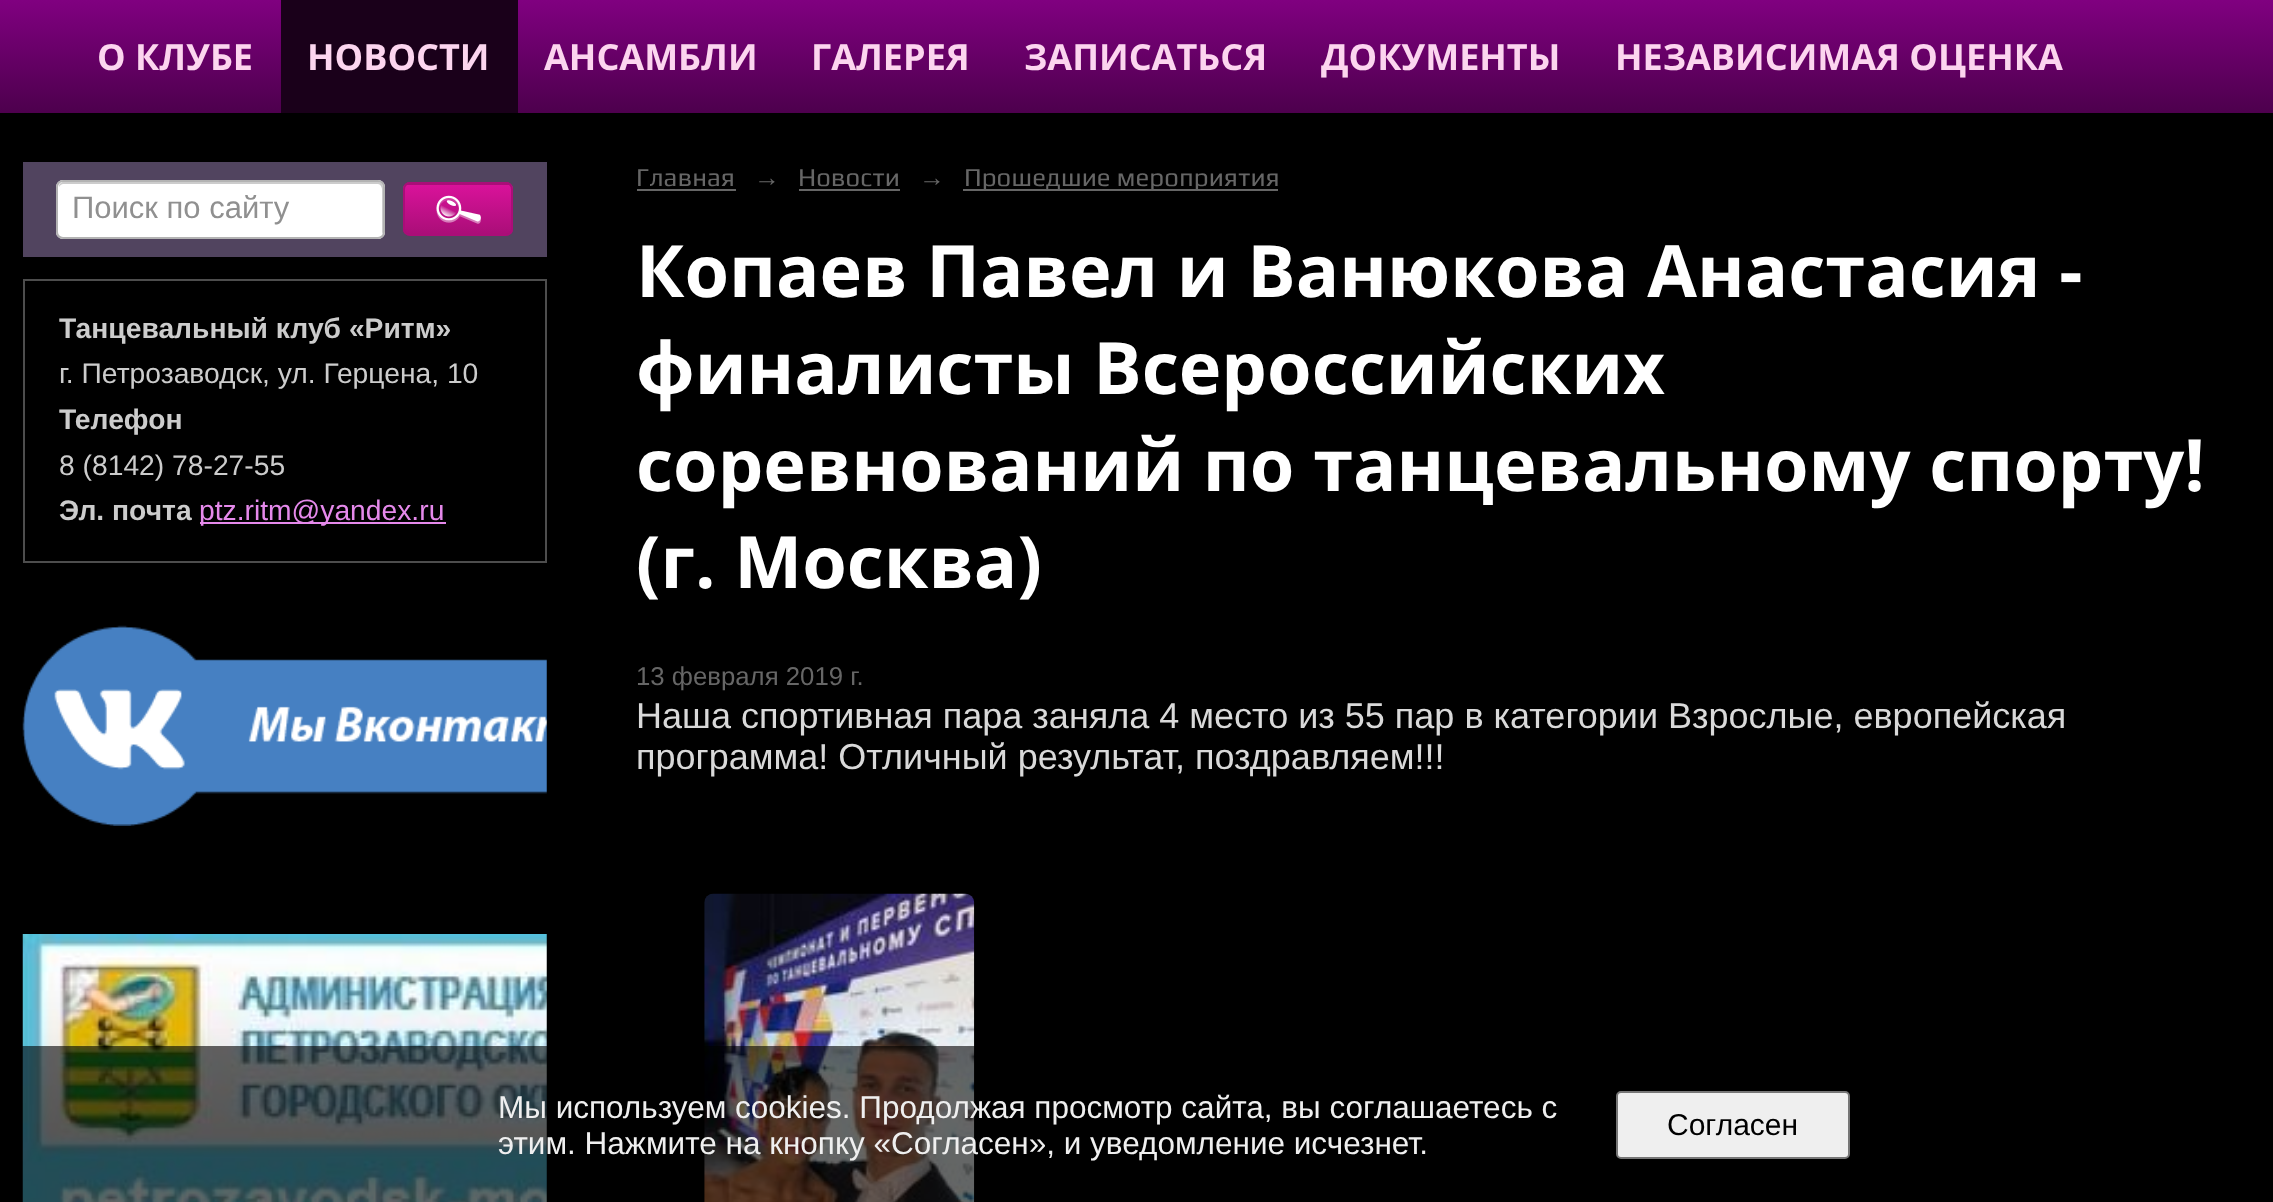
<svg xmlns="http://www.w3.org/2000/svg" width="2273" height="1202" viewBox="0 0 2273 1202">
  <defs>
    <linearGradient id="g1" gradientUnits="userSpaceOnUse" x1="1137" y1="0" x2="1137" y2="113"><stop offset="0" stop-color="rgb(128,0,128)"/><stop offset="1" stop-color="rgb(77,0,77)"/></linearGradient>
    <clipPath id="clip1"><rect x="403" y="182" width="110" height="54" rx="7"/></clipPath>
    <linearGradient id="g2" gradientUnits="userSpaceOnUse" x1="458" y1="135" x2="458" y2="185"><stop offset="0" stop-color="rgb(217,18,154)"/><stop offset="1" stop-color="rgb(170,14,120)"/></linearGradient>
    <linearGradient id="g3" gradientUnits="userSpaceOnUse" x1="458" y1="185" x2="458" y2="234"><stop offset="0" stop-color="rgb(217,18,154)"/><stop offset="1" stop-color="rgb(170,14,120)"/></linearGradient>
    <clipPath id="clip2"><rect x="59" y="313" width="452" height="31"/></clipPath>
    <clipPath id="clip3"><rect x="59" y="405" width="452" height="32"/></clipPath>
  </defs>
  <rect width="100%" height="100%" fill="rgb(0,0,0)"/>
  <rect x="0" y="0" width="2273" height="113" fill="url(#g1)"/>
  <text x="97" y="70" font-family="Open Sans" font-size="36" font-weight="bold" fill="rgb(252,213,239)">О КЛУБЕ</text>
  <rect x="281" y="0" width="237" height="113" fill="rgb(26,0,26)"/>
  <g font-family="Open Sans" font-size="36" font-weight="bold" fill="rgb(252,213,239)">
    <text x="307" y="70">НОВОСТИ</text>
    <text x="544" y="70">АНСАМБЛИ</text>
    <text x="811" y="70">ГАЛЕРЕЯ</text>
    <text x="1024" y="70">ЗАПИСАТЬСЯ</text>
    <text x="1321" y="70">ДОКУМЕНТЫ</text>
    <text x="1615" y="70">НЕЗАВИСИМАЯ ОЦЕНКА</text>
  </g>
  <rect x="23" y="162" width="524" height="95" fill="rgb(81,68,95)"/>
  <rect x="56" y="180" width="329" height="59" rx="7" fill="rgb(255,255,255)"/>
  <path d="M63 184H378C380 184 382 187 382 189V234C383 233 383 232 383 231V187C383 184 381 182 378 182H64C61 182 59 184 59 187C60 185 62 184 63 184Z" fill="rgb(204,204,204)"/>
  <rect x="57" y="181" width="327" height="57" rx="6" fill="none" stroke="rgb(179,179,179)" stroke-width="2"/>
  <text x="72" y="218" font-family="Liberation Sans" font-size="31" fill="rgb(144,144,144)">Поиск по сайту</text>
  <g clip-path="url(#clip1)">
    <rect x="403" y="182" width="110" height="3" fill="url(#g2)"/>
    <rect x="403" y="185" width="110" height="49" fill="url(#g3)"/>
  </g>
  <rect x="404" y="183" width="108" height="52" rx="6" fill="none" stroke="rgb(170,14,120)" stroke-width="2"/>
  <image x="436" y="195" width="45" height="29" href="pic1.png"/>
  <rect x="24" y="280" width="522" height="282" fill="none" stroke="rgb(77,77,77)" stroke-width="2"/>
  <g clip-path="url(#clip2)">
    <text x="59" y="338" font-family="Liberation Sans" font-size="28.25" font-weight="bold" fill="rgb(204,204,204)">Танцевальный клуб «Ритм»</text>
  </g>
  <text x="59" y="383" font-family="Liberation Sans" font-size="28.25" fill="rgb(204,204,204)">г. Петрозаводск, ул. Герцена, 10</text>
  <g clip-path="url(#clip3)">
    <text x="59" y="429" font-family="Liberation Sans" font-size="28.25" font-weight="bold" fill="rgb(204,204,204)">Телефон</text>
  </g>
  <text x="59" y="475" font-family="Liberation Sans" font-size="28.25" fill="rgb(204,204,204)">8 (8142) 78-27-55</text>
  <text x="59" y="520" font-family="Liberation Sans" font-size="28.25" font-weight="bold" fill="rgb(204,204,204)">Эл. почта</text>
  <rect x="200" y="522" width="246" height="2" fill="rgb(229,137,235)"/>
  <text x="199" y="520" font-family="Liberation Sans" font-size="28.25" fill="rgb(229,137,235)">ptz.ritm@yandex.ru</text>
  <image x="22" y="625" width="525" height="201" href="pic2.png"/>
  <image x="22" y="934" width="525" height="268" href="pic3.png"/>
  <text x="636" y="186" font-family="Play" font-size="25.75" fill="rgb(102,102,102)">Главная</text>
  <rect x="637" y="189" width="99" height="2" fill="rgb(102,102,102)"/>
  <text x="754" y="186" font-family="Liberation Sans" font-size="25.75" font-style="italic" fill="rgb(102,102,102)">→</text>
  <text x="798" y="186" font-family="Play" font-size="25.75" fill="rgb(102,102,102)">Новости</text>
  <rect x="799" y="189" width="101" height="2" fill="rgb(102,102,102)"/>
  <text x="919" y="186" font-family="Liberation Sans" font-size="25.75" font-style="italic" fill="rgb(102,102,102)">→</text>
  <rect x="963" y="189" width="315" height="2" fill="rgb(102,102,102)"/>
  <text x="964" y="186" font-family="Play" font-size="25.75" fill="rgb(102,102,102)">Прошедшие мероприятия</text>
  <g font-family="Open Sans" font-size="72.1" font-weight="bold" fill="rgb(255,255,255)">
    <text>
      <tspan x="636" y="297">Копаев Павел и Ванюкова Анастасия -</tspan>
      <tspan x="636" y="394">финалисты Всероссийских</tspan>
      <tspan x="636" y="491">соревнований по танцевальному спорту!</tspan>
      <tspan x="636" y="588">(г. Москва)</tspan>
    </text>
  </g>
  <text x="636" y="685" font-family="Liberation Sans" font-size="25.75" fill="rgb(102,102,102)">13 февраля 2019 г.</text>
  <g font-family="Liberation Sans" font-size="36" fill="rgb(217,217,217)">
    <text>
      <tspan x="636" y="728">Наша спортивная пара заняла 4 место из 55 пар в категории Взрослые, европейская</tspan>
      <tspan x="636" y="769">программа! Отличный результат, поздравляем!!!</tspan>
    </text>
  </g>
  <image x="704" y="893" width="271" height="309" href="pic4.png"/>
  <rect x="22" y="1046" width="953" height="156" fill="rgba(0,0,0,0.6)"/>
  <g font-family="Liberation Sans" font-size="31.5" fill="rgb(239,239,239)">
    <text>
      <tspan x="498" y="1118">Мы используем cookies. Продолжая просмотр сайта, вы соглашаетесь с</tspan>
      <tspan x="498" y="1154">этим. Нажмите на кнопку «Согласен», и уведомление исчезнет.</tspan>
    </text>
  </g>
  <rect x="1617" y="1092" width="232" height="66" rx="4" fill="rgb(239,239,239)" stroke="rgb(118,118,118)" stroke-width="2"/>
  <text x="1667" y="1135" font-family="Liberation Sans" font-size="30" fill="rgb(0,0,0)">Согласен</text>
</svg>
